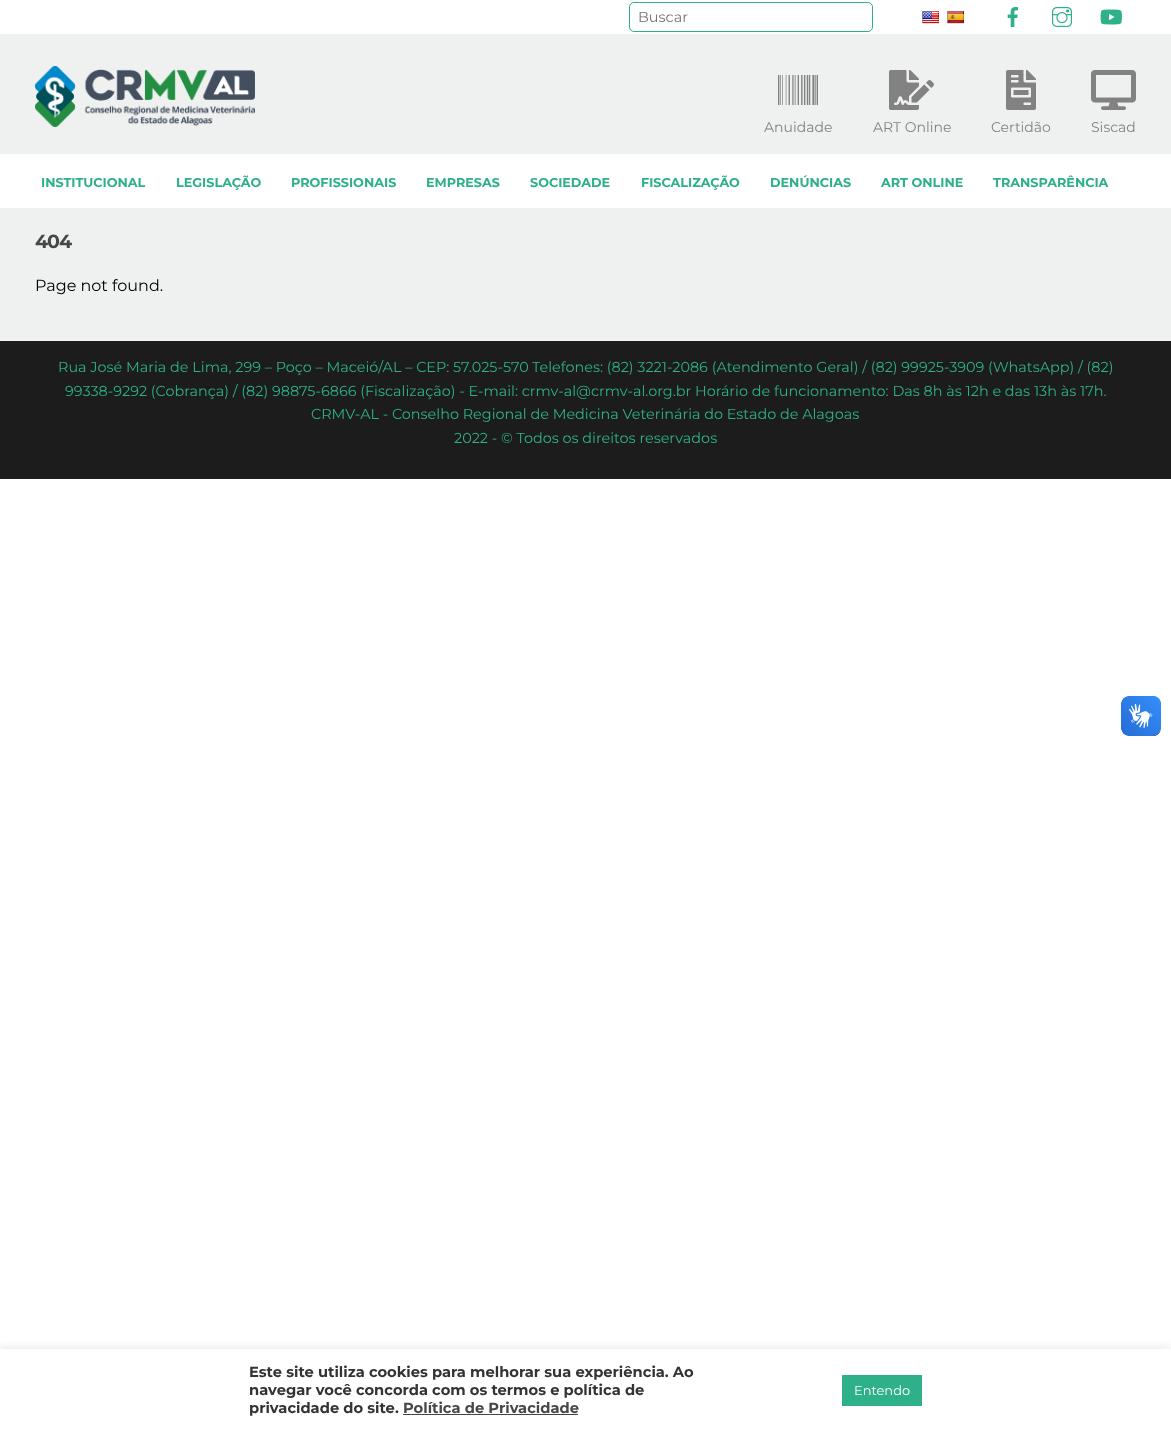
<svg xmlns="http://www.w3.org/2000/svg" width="1171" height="1431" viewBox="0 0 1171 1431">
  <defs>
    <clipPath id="clip1"><rect x="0" y="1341" width="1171" height="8"/></clipPath>
  </defs>
  <rect width="100%" height="100%" fill="rgb(255,255,255)"/>
  <rect x="0" y="34" width="1171" height="120" fill="rgb(239,241,241)"/>
  <image x="35" y="66" width="220" height="61" href="pic1.png"/>
  <rect x="629.5" y="2.5" width="243" height="29" rx="4.5" fill="none" stroke="rgb(46,176,138)"/>
  <text x="638" y="22" font-family="Montserrat" font-size="14.4" fill="rgb(117,117,117)">Buscar</text>
  <image x="922" y="11" width="17" height="13" href="pic2.png"/>
  <image x="947" y="11" width="17" height="13" href="pic3.png"/>
  <image x="1007" y="7" width="11" height="20" href="pic4.png"/>
  <image x="1052" y="7" width="20" height="20" href="pic5.png"/>
  <image x="1100" y="9" width="22" height="16" href="pic6.png"/>
  <image x="778" y="75" width="40" height="30" href="pic7.png"/>
  <text x="764" y="132" font-family="Montserrat" font-size="14" fill="rgb(130,130,130)">Anuidade</text>
  <image x="889" y="70" width="45" height="40" href="pic8.png"/>
  <text x="873" y="132" font-family="Montserrat" font-size="14" fill="rgb(130,130,130)">ART Online</text>
  <image x="1006" y="70" width="30" height="40" href="pic9.png"/>
  <text x="991" y="132" font-family="Montserrat" font-size="14" fill="rgb(130,130,130)">Certidão</text>
  <image x="1091" y="70" width="45" height="40" href="pic10.png"/>
  <text x="1091" y="132" font-family="Montserrat" font-size="14" fill="rgb(130,130,130)">Siscad</text>
  <g font-family="Montserrat" font-size="12.75" font-weight="bold" fill="rgb(46,176,138)">
    <text x="41" y="187">INSTITUCIONAL</text>
    <text x="176" y="187">LEGISLAÇÃO</text>
    <text x="291" y="187">PROFISSIONAIS</text>
    <text x="426" y="187">EMPRESAS</text>
    <text x="530" y="187">SOCIEDADE</text>
    <text x="641" y="187">FISCALIZAÇÃO</text>
    <text x="770" y="187">DENÚNCIAS</text>
    <text x="881" y="187">ART ONLINE</text>
    <text x="993" y="187">TRANSPARÊNCIA</text>
  </g>
  <rect x="0" y="208" width="1171" height="133" fill="rgb(239,241,241)"/>
  <text x="35" y="248" font-family="Montserrat" font-size="19" font-weight="bold" letter-spacing="-1" fill="rgb(71,71,71)">404</text>
  <text x="35" y="291" font-family="Montserrat" font-size="16" fill="rgb(0,0,0)">Page not found.</text>
  <rect x="0" y="341" width="1171" height="138" fill="rgb(28,28,28)"/>
  <g font-family="Montserrat" font-size="14.4" fill="rgb(46,176,138)">
    <text x="58" y="372">Rua José Maria de Lima, 299 – Poço – Maceió/AL – CEP: 57.025-570</text>
    <text x="532" y="372">Telefones: (82) 3221-2086 (Atendimento Geral) / (82) 99925-3909 (WhatsApp) / (82)</text>
    <text x="65" y="396">99338-9292 (Cobrança) / (82) 98875-6866 (Fiscalização) - E-mail: crmv-al@crmv-al.org.br Horário de funcionamento: Das 8h às 12h e das 13h às 17h.</text>
    <text x="311" y="419">CRMV-AL - Conselho Regional de Medicina Veterinária do Estado de Alagoas</text>
    <text x="454" y="443">2022 - © Todos os direitos reservados</text>
  </g>
  <image x="1121" y="696" width="40" height="40" href="pic11.png"/>
  <image x="1121" y="696" width="40" height="40" href="pic12.png"/>
  <g clip-path="url(#clip1)">
    <rect x="0" y="1348" width="1171" height="82" fill="rgba(172,171,171,0.3)" filter="blur(5px)"/>
  </g>
  <g font-family="Montserrat" font-size="14.7" font-weight="bold" fill="rgb(51,51,51)">
    <text>
      <tspan x="249" y="1377">Este site utiliza cookies para melhorar sua experiência. Ao</tspan>
      <tspan x="249" y="1395">navegar você concorda com os termos e política de</tspan>
      <tspan x="249" y="1413">privacidade do site.</tspan>
    </text>
  </g>
  <text x="403" y="1413" font-family="Montserrat" font-size="14.7" font-weight="bold" fill="rgb(71,71,71)">Política de Privacidade</text>
  <rect x="403" y="1414" width="175" height="1" fill="rgb(68,68,68)"/>
  <rect x="842" y="1375" width="80" height="31" fill="rgb(46,176,138)"/>
  <text x="854" y="1395" font-family="Montserrat" font-size="13" fill="rgb(255,255,255)">Entendo</text>
</svg>
